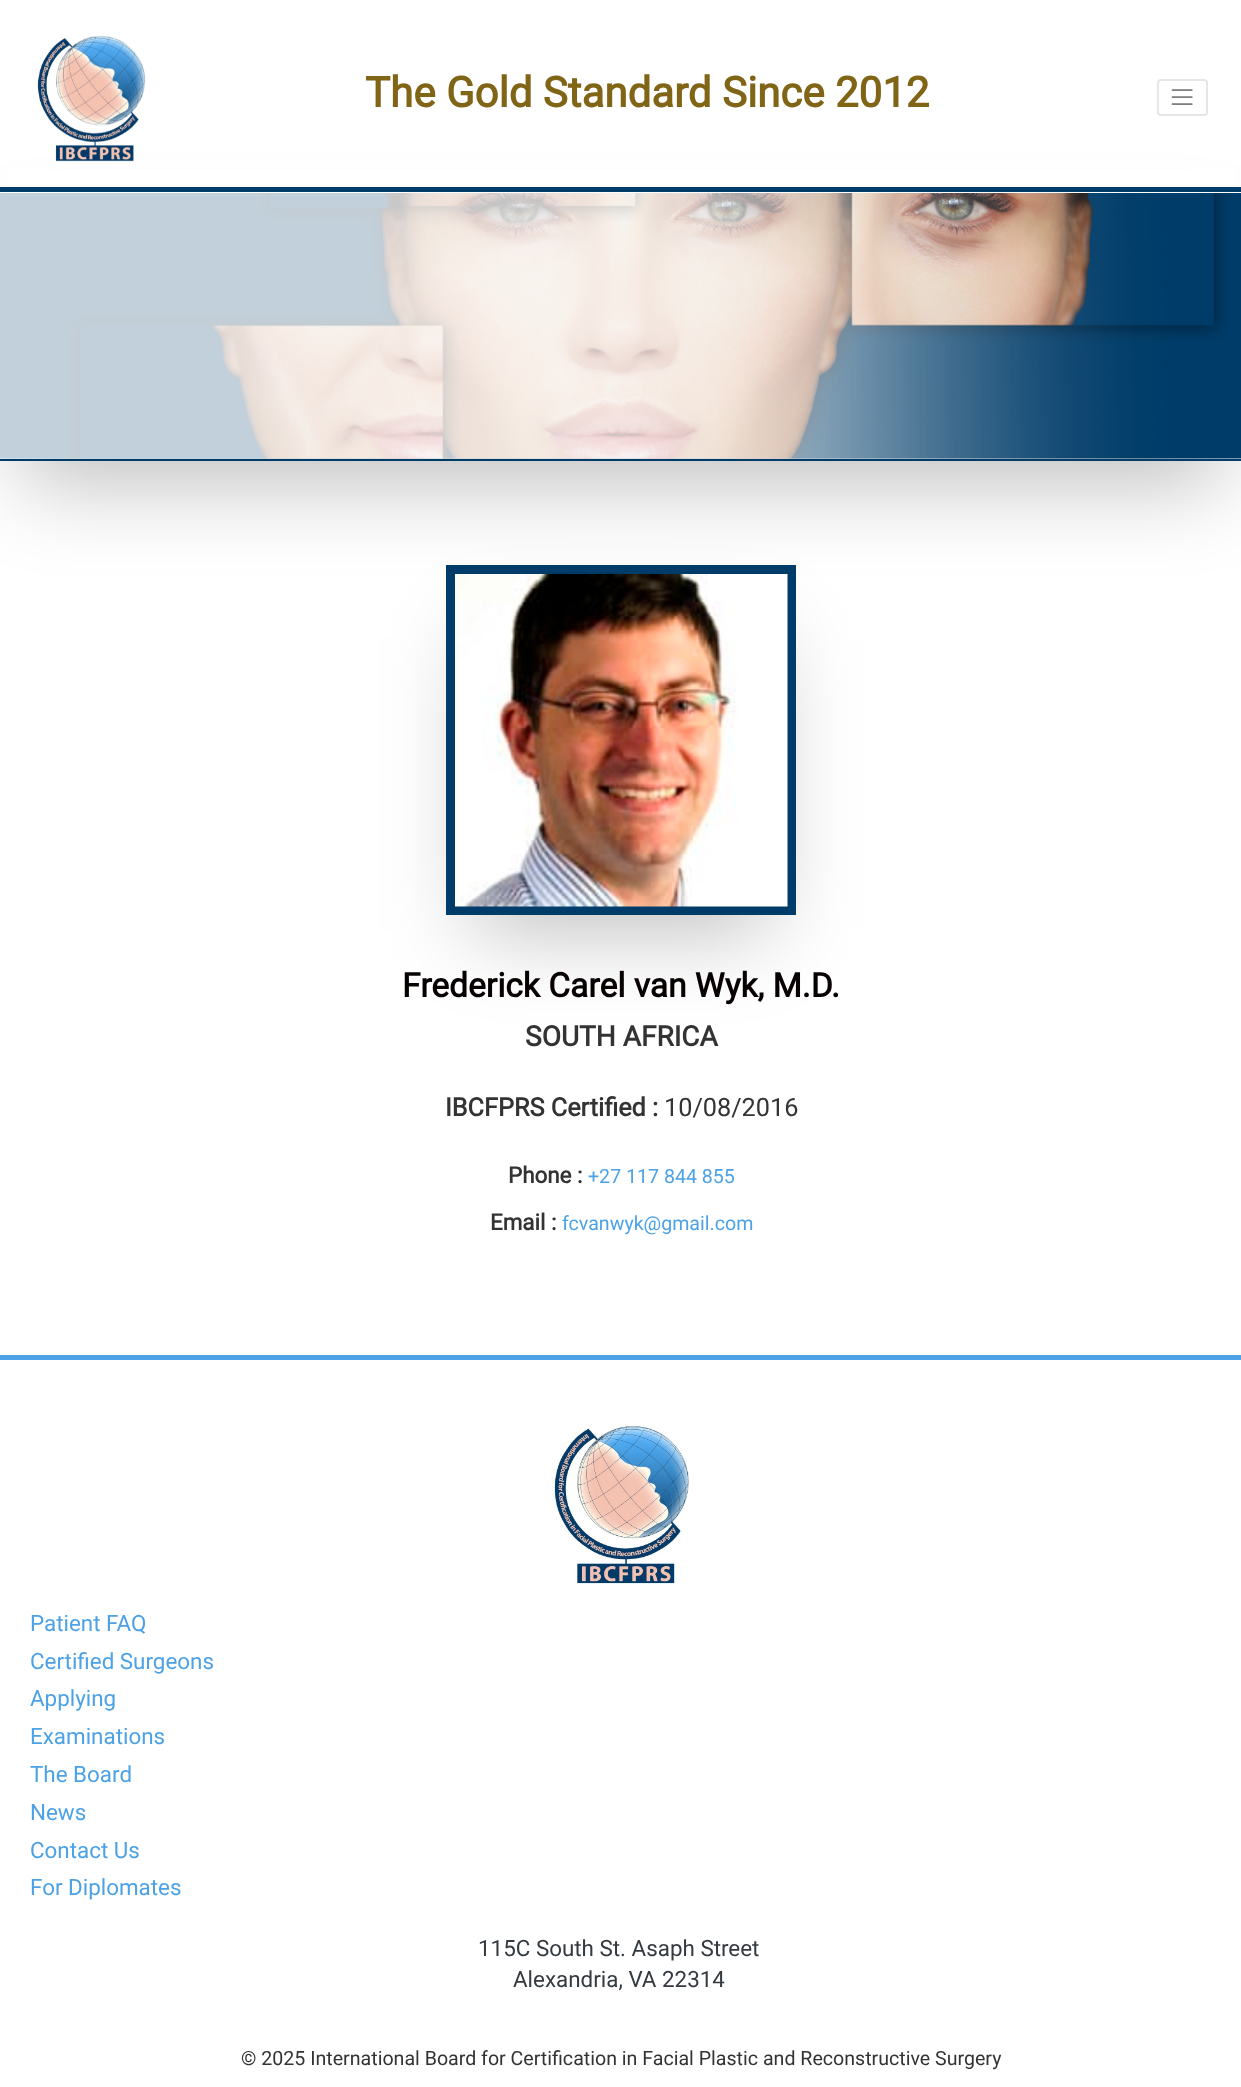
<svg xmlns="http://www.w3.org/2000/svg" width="1241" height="2087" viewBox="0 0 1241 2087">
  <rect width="100%" height="100%" fill="rgb(255,255,255)"/>
  <rect x="21" y="247" width="1201" height="236" fill="rgba(0,0,0,0.25)" filter="blur(44px)"/>
  <rect x="7" y="170" width="1229" height="23" fill="rgb(255,255,255)"/>
  <rect x="0" y="187" width="1241" height="5" fill="rgb(0,60,105)"/>
  <image x="37" y="35" width="109" height="127" href="pic1.png"/>
  <text x="365" y="107" font-family="Roboto" font-size="42" font-weight="bold" fill="rgb(128,101,23)">The Gold Standard Since 2012</text>
  <rect x="1158" y="80" width="49" height="35" rx="3" fill="none" stroke="rgb(230,230,230)" stroke-width="2"/>
  <image x="1171" y="89" width="22" height="16" href="pic2.png"/>
  <rect x="0" y="459" width="1241" height="2" fill="rgb(0,60,105)"/>
  <image x="0" y="193" width="1241" height="266" href="pic3.png"/>
  <rect x="474" y="637" width="294" height="294" fill="rgba(0,0,0,0.25)" filter="blur(44px)"/>
  <rect x="450.5" y="569.5" width="341" height="341" fill="none" stroke="rgb(0,60,105)" stroke-width="9"/>
  <image x="455" y="574" width="333" height="333" href="pic4.png"/>
  <text x="402" y="997" font-family="Roboto" font-size="33.6" font-weight="bold" fill="rgb(7,0,0)">Frederick Carel van Wyk, M.D.</text>
  <text x="525" y="1046" font-family="Roboto" font-size="28" font-weight="bold" fill="rgb(51,51,51)">SOUTH AFRICA</text>
  <text x="445" y="1116" font-family="Roboto" font-size="25.25" font-weight="bold" fill="rgb(51,51,51)">IBCFPRS Certified :</text>
  <text x="664" y="1116" font-family="Roboto" font-size="25.25" fill="rgb(51,51,51)">10/08/2016</text>
  <text x="508" y="1183" font-family="Roboto" font-size="22.4" font-weight="bold" fill="rgb(51,51,51)">Phone :</text>
  <text x="588" y="1183" font-family="Roboto" font-size="19.6" fill="rgb(77,162,229)">+27 117 844 855</text>
  <text x="490" y="1230" font-family="Roboto" font-size="22.4" font-weight="bold" fill="rgb(51,51,51)">Email :</text>
  <text x="562" y="1230" font-family="Roboto" font-size="19.6" fill="rgb(77,162,229)">fcvanwyk@gmail.com</text>
  <rect x="0" y="1355" width="1241" height="5" fill="rgb(77,162,229)"/>
  <image x="552" y="1425" width="137" height="160" href="pic5.png"/>
  <g font-family="Roboto" font-size="22.4" fill="rgb(77,162,229)">
    <text>
      <tspan x="30" y="1631">Patient FAQ</tspan>
      <tspan x="30" y="1669">Certified Surgeons</tspan>
      <tspan x="30" y="1706">Applying</tspan>
      <tspan x="30" y="1744">Examinations</tspan>
      <tspan x="30" y="1782">The Board</tspan>
      <tspan x="30" y="1820">News</tspan>
      <tspan x="30" y="1858">Contact Us</tspan>
      <tspan x="30" y="1895">For Diplomates</tspan>
    </text>
  </g>
  <g font-family="Roboto" font-size="22.4" fill="rgb(52,58,64)">
    <text x="478" y="1956">115C South St. Asaph Street</text>
    <text x="513" y="1987">Alexandria, VA 22314</text>
  </g>
  <text x="241" y="2065" font-family="Roboto" font-size="19.6" fill="rgb(51,51,51)">© 2025 International Board for Certification in Facial Plastic and Reconstructive Surgery</text>
</svg>
